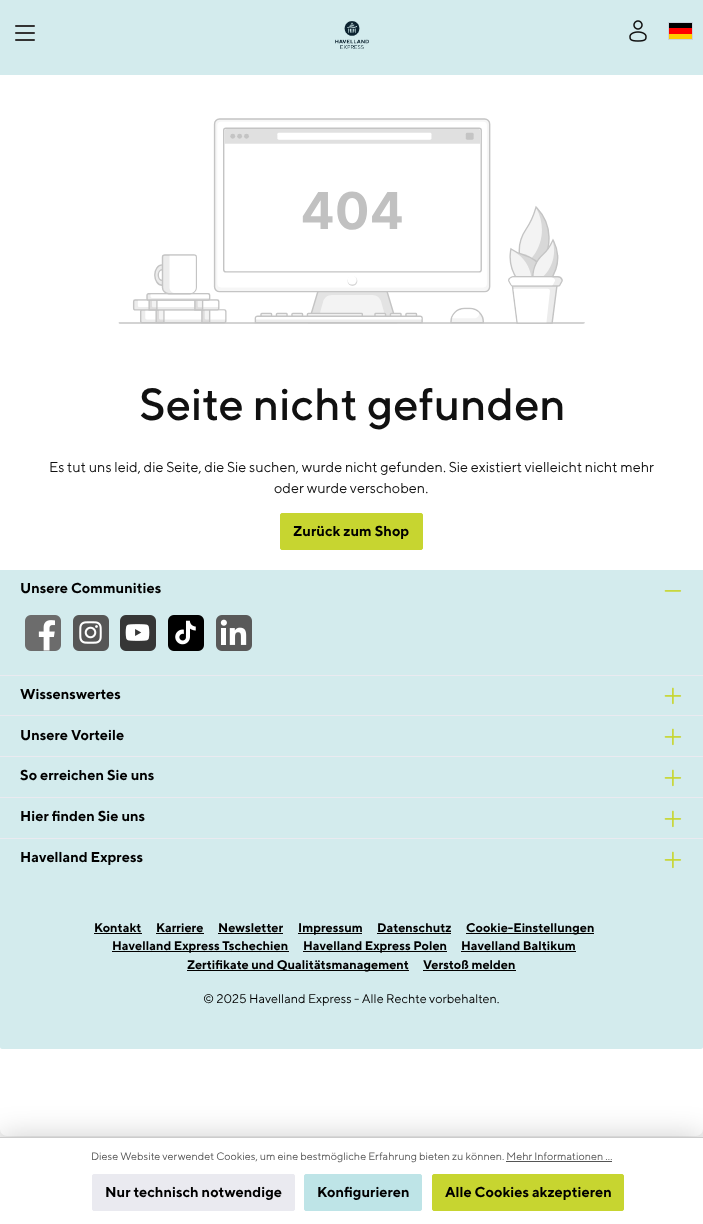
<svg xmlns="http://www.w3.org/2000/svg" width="703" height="1224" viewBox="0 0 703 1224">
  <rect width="100%" height="100%" fill="rgb(250,250,250)"/>
  <rect x="0" y="0" width="703" height="1136" rx="7" fill="rgba(0,0,0,0.1)" filter="blur(10px)"/>
  <rect x="0" y="0" width="703" height="1136" rx="7" fill="rgb(255,255,255)"/>
  <rect x="0" y="0" width="703" height="75" fill="rgb(211,235,237)"/>
  <image x="15" y="25" width="20" height="16" href="pic1.png"/>
  <image x="335" y="21" width="34" height="28" href="pic2.png"/>
  <image x="629" y="20" width="18" height="22" href="pic3.png"/>
  <rect x="669" y="23" width="23" height="5" fill="rgb(0,0,0)"/>
  <rect x="669" y="28" width="23" height="6" fill="rgb(255,0,0)"/>
  <rect x="669" y="34" width="23" height="5" fill="rgb(255,204,0)"/>
  <rect x="668.5" y="22.5" width="24" height="17" fill="none" stroke="rgb(201,211,221)"/>
  <image x="118" y="118" width="467" height="206" href="pic4.png"/>
  <text x="139" y="420" font-family="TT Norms" font-size="45.25" font-weight="500" fill="rgb(17,17,17)">Seite nicht gefunden</text>
  <g font-family="TT Norms" font-size="14.4" fill="rgb(17,17,17)">
    <text x="49" y="472">Es tut uns leid, die Seite, die Sie suchen, wurde nicht gefunden. Sie existiert vielleicht nicht mehr</text>
    <text x="274" y="493">oder wurde verschoben.</text>
  </g>
  <rect x="280.5" y="513.5" width="142" height="36" rx="1.5" fill="rgb(199,213,48)" stroke="rgb(199,213,48)"/>
  <text x="293" y="536" font-family="TT Norms" font-size="14.4" font-weight="bold" fill="rgb(0,0,0)">Zurück zum Shop</text>
  <path d="M0 570H703V1047C703 1048 702 1049 701 1049H2C1 1049 0 1048 0 1047Z" fill="rgb(211,235,237)"/>
  <rect x="0" y="675" width="703" height="1" fill="rgb(234,234,240)"/>
  <text x="20" y="593" font-family="TT Norms" font-size="14.4" font-weight="bold" fill="rgb(0,0,0)">Unsere Communities</text>
  <image x="664" y="590" width="18" height="2" href="pic5.png"/>
  <image x="25" y="615" width="36" height="36" href="pic6.png"/>
  <image x="73" y="615" width="36" height="36" href="pic7.png"/>
  <image x="120" y="615" width="36" height="36" href="pic8.png"/>
  <image x="168" y="615" width="36" height="36" href="pic9.png"/>
  <image x="216" y="615" width="36" height="36" href="pic10.png"/>
  <rect x="0" y="715" width="703" height="1" fill="rgb(234,234,240)"/>
  <text x="20" y="699" font-family="TT Norms" font-size="14.4" font-weight="bold" fill="rgb(0,0,0)">Wissenswertes</text>
  <image x="664" y="687" width="18" height="18" href="pic11.png"/>
  <rect x="0" y="756" width="703" height="1" fill="rgb(234,234,240)"/>
  <text x="20" y="740" font-family="TT Norms" font-size="14.4" font-weight="bold" fill="rgb(0,0,0)">Unsere Vorteile</text>
  <image x="664" y="728" width="18" height="18" href="pic11.png"/>
  <rect x="0" y="797" width="703" height="1" fill="rgb(234,234,240)"/>
  <text x="20" y="780" font-family="TT Norms" font-size="14.4" font-weight="bold" fill="rgb(0,0,0)">So erreichen Sie uns</text>
  <image x="664" y="769" width="18" height="18" href="pic11.png"/>
  <rect x="0" y="838" width="703" height="1" fill="rgb(234,234,240)"/>
  <text x="20" y="821" font-family="TT Norms" font-size="14.4" font-weight="bold" fill="rgb(0,0,0)">Hier finden Sie uns</text>
  <image x="664" y="810" width="18" height="18" href="pic11.png"/>
  <text x="20" y="862" font-family="TT Norms" font-size="14.4" font-weight="bold" fill="rgb(0,0,0)">Havelland Express</text>
  <image x="664" y="851" width="18" height="18" href="pic11.png"/>
  <text x="94" y="932" font-family="TT Norms" font-size="12.6" font-weight="bold" fill="rgb(0,0,0)">Kontakt</text>
  <rect x="94" y="933" width="48" height="1" fill="rgb(0,0,0)"/>
  <text x="156" y="932" font-family="TT Norms" font-size="12.6" font-weight="bold" fill="rgb(0,0,0)">Karriere</text>
  <rect x="156" y="933" width="48" height="1" fill="rgb(0,0,0)"/>
  <text x="218" y="932" font-family="TT Norms" font-size="12.6" font-weight="bold" fill="rgb(0,0,0)">Newsletter</text>
  <rect x="218" y="933" width="65" height="1" fill="rgb(0,0,0)"/>
  <rect x="298" y="933" width="64" height="1" fill="rgb(0,0,0)"/>
  <g font-family="TT Norms" font-size="12.6" font-weight="bold" fill="rgb(0,0,0)">
    <text x="298" y="932">Impressum</text>
    <text x="377" y="932">Datenschutz</text>
  </g>
  <rect x="377" y="933" width="74" height="1" fill="rgb(0,0,0)"/>
  <rect x="466" y="933" width="128" height="1" fill="rgb(0,0,0)"/>
  <text x="466" y="932" font-family="TT Norms" font-size="12.6" font-weight="bold" fill="rgb(0,0,0)">Cookie-Einstellungen</text>
  <rect x="112" y="951" width="177" height="1" fill="rgb(0,0,0)"/>
  <text x="112" y="950" font-family="TT Norms" font-size="12.6" font-weight="bold" fill="rgb(0,0,0)">Havelland Express Tschechien</text>
  <rect x="303" y="951" width="144" height="1" fill="rgb(0,0,0)"/>
  <g font-family="TT Norms" font-size="12.6" font-weight="bold" fill="rgb(0,0,0)">
    <text x="303" y="950">Havelland Express Polen</text>
    <text x="461" y="950">Havelland Baltikum</text>
  </g>
  <rect x="461" y="951" width="115" height="1" fill="rgb(0,0,0)"/>
  <rect x="187" y="970" width="222" height="1" fill="rgb(0,0,0)"/>
  <g font-family="TT Norms" font-size="12.6" font-weight="bold" fill="rgb(0,0,0)">
    <text x="187" y="969">Zertifikate und Qualitätsmanagement</text>
    <text x="423" y="969">Verstoß melden</text>
  </g>
  <rect x="423" y="970" width="93" height="1" fill="rgb(0,0,0)"/>
  <text x="203" y="1003" font-family="TT Norms" font-size="12.6" fill="rgb(0,0,0)">© 2025 Havelland Express - Alle Rechte vorbehalten.</text>
  <rect x="0" y="1137" width="703" height="87" fill="rgba(0,0,0,0.2)" filter="blur(15px)"/>
  <rect x="0" y="1138" width="703" height="86" fill="rgb(255,255,255)"/>
  <rect x="0" y="1137" width="703" height="1" fill="rgb(204,204,204)"/>
  <text x="91" y="1160" font-family="TT Norms" font-size="10.8" fill="rgb(85,85,85)">Diese Website verwendet Cookies, um eine bestmögliche Erfahrung bieten zu können. Mehr Informationen ...</text>
  <rect x="506" y="1161" width="106" height="1" fill="rgb(85,85,85)"/>
  <rect x="92.5" y="1174.5" width="202" height="36" rx="1.5" fill="rgb(234,234,240)" stroke="rgb(234,234,240)"/>
  <text x="105" y="1197" font-family="TT Norms" font-size="14.4" font-weight="bold" fill="rgb(0,0,0)">Nur technisch notwendige</text>
  <rect x="304.5" y="1174.5" width="117" height="36" rx="1.5" fill="rgb(190,228,231)" stroke="rgb(190,228,231)"/>
  <text x="317" y="1197" font-family="TT Norms" font-size="14.4" font-weight="bold" fill="rgb(0,0,0)">Konfigurieren</text>
  <rect x="432.5" y="1174.5" width="191" height="36" rx="1.5" fill="rgb(199,213,48)" stroke="rgb(199,213,48)"/>
  <text x="445" y="1197" font-family="TT Norms" font-size="14.4" font-weight="bold" fill="rgb(0,0,0)">Alle Cookies akzeptieren</text>
</svg>
